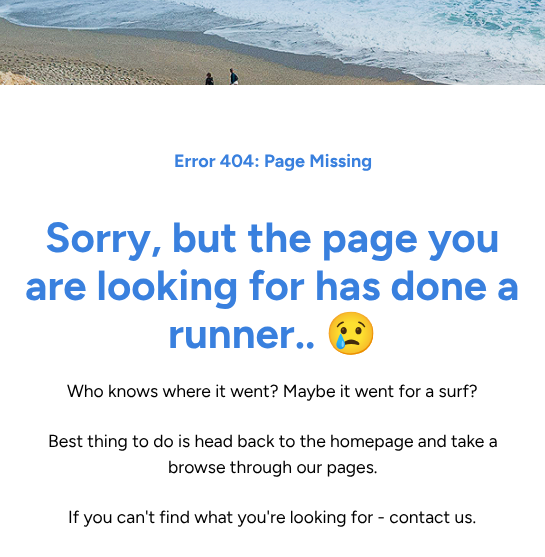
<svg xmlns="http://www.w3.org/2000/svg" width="545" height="557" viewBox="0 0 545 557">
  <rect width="100%" height="100%" fill="rgb(255,255,255)"/>
  <image x="0" y="0" width="545" height="85" href="pic1.png"/>
  <image x="0" y="0" width="545" height="80" href="pic2.png"/>
  <text x="174" y="167" font-family="Figtree" font-size="18" font-weight="bold" fill="rgb(57,128,222)">Error 404: Page Missing</text>
  <g font-family="Figtree" font-size="42" font-weight="bold" fill="rgb(57,128,222)">
    <text x="45" y="252">Sorry, but the page you</text>
    <text x="25" y="300">are looking for has done a</text>
    <text x="168" y="348">runner..</text>
  </g>
  <text x="325" y="348" font-family="Noto Color Emoji" font-size="42" font-weight="bold" fill="rgb(57,128,222)">😢</text>
  <g font-family="Figtree" font-size="17.5" fill="rgb(0,0,0)">
    <text x="67" y="397">Who knows where it went? Maybe it went for a surf?</text>
    <text x="48" y="447">Best thing to do is head back to the homepage and take a</text>
    <text x="168" y="473">browse through our pages.</text>
    <text x="68" y="523">If you can't find what you're looking for - contact us.</text>
  </g>
</svg>
